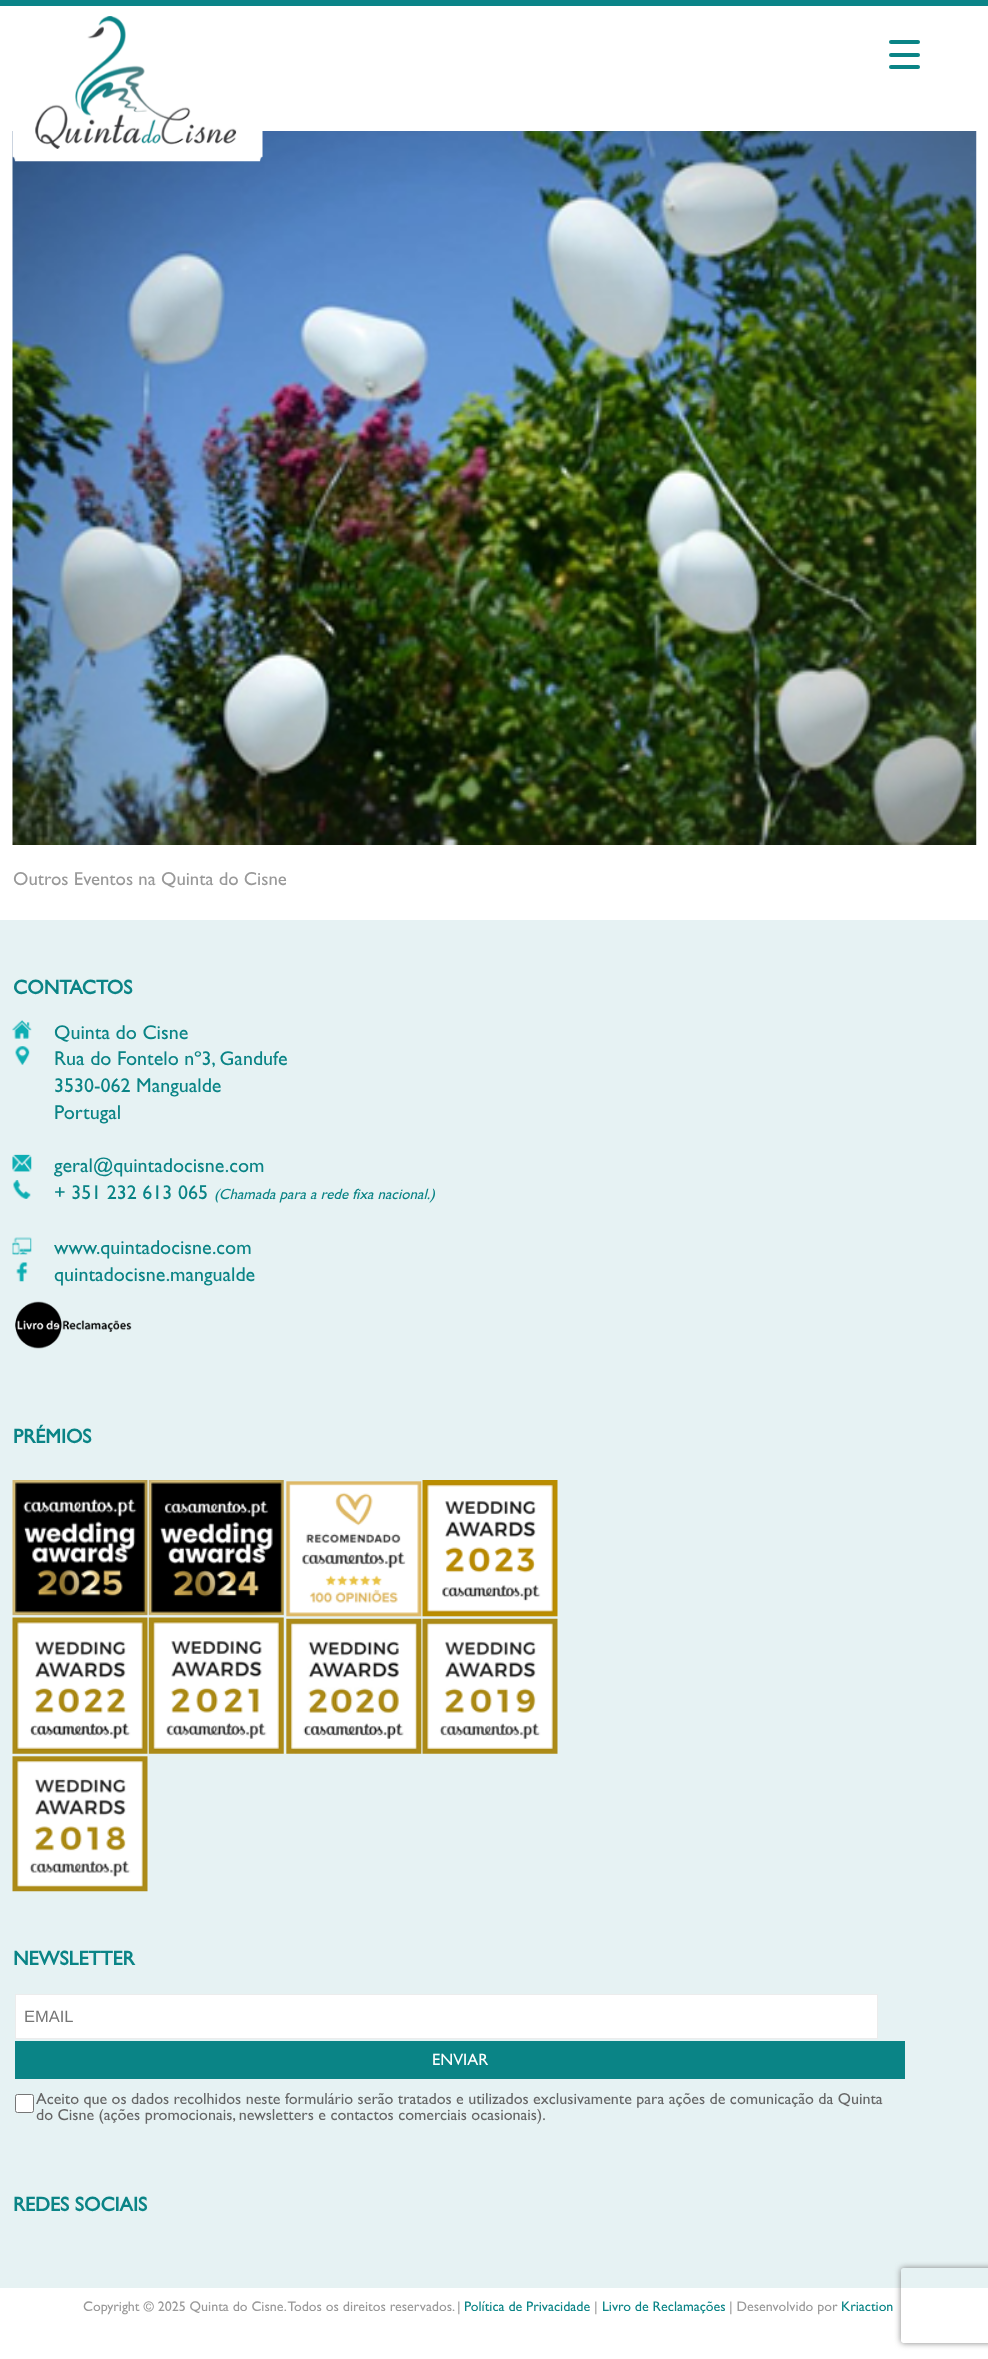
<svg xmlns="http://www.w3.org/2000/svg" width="988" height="2359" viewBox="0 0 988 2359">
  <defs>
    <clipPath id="clip1"><path d="M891 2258H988V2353H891ZM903.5 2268H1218.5C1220 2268 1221 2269 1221 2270.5V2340.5C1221 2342 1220 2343 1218.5 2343H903.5C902 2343 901 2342 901 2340.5V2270.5C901 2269 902 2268 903.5 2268Z" clip-rule="evenodd"/></clipPath>
  </defs>
  <rect width="100%" height="100%" fill="rgb(255,255,255)"/>
  <rect x="0" y="0" width="988" height="6" fill="rgb(10,132,136)"/>
  <image x="12" y="131" width="965" height="714" href="pic2.png"/>
  <image x="12" y="16" width="251" height="146" href="pic1.png"/>
  <rect x="889" y="53" width="31" height="4" rx="2" fill="rgb(10,132,134)"/>
  <rect x="889" y="40" width="31" height="4" rx="2" fill="rgb(10,132,134)"/>
  <rect x="889" y="65" width="31" height="4" rx="2" fill="rgb(10,132,134)"/>
  <text x="13" y="885" font-family="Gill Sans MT" font-size="18.75" fill="rgb(153,153,153)">Outros Eventos na Quinta do Cisne</text>
  <rect x="0" y="920" width="988" height="1368" fill="rgb(230,242,243)"/>
  <text x="13" y="994" font-family="Gill Sans MT" font-size="20" font-weight="bold" fill="rgb(10,132,134)">CONTACTOS</text>
  <image x="12" y="1020" width="20" height="19" href="pic3.png"/>
  <text x="54" y="1039" font-family="Gill Sans MT" font-size="20" fill="rgb(10,132,134)">Quinta do Cisne</text>
  <image x="15" y="1046" width="15" height="19" href="pic4.png"/>
  <g font-family="Gill Sans MT" font-size="20" fill="rgb(10,132,134)">
    <text>
      <tspan x="54" y="1065">Rua do Fontelo nº3, Gandufe</tspan>
      <tspan x="54" y="1092">3530-062 Mangualde</tspan>
      <tspan x="54" y="1119">Portugal</tspan>
    </text>
  </g>
  <image x="12" y="1154" width="20" height="18" href="pic5.png"/>
  <text x="54" y="1172" font-family="Gill Sans MT" font-size="20" fill="rgb(10,132,134)">geral@quintadocisne.com</text>
  <image x="13" y="1180" width="18" height="19" href="pic6.png"/>
  <text x="54" y="1199" font-family="Gill Sans MT" font-size="20" fill="rgb(10,132,134)">+ 351 232 613 065</text>
  <text x="214" y="1199" font-family="Gill Sans MT" font-size="15" font-style="italic" fill="rgb(10,132,134)">(Chamada para a rede fixa nacional.)</text>
  <image x="12" y="1237" width="20" height="18" href="pic7.png"/>
  <text x="54" y="1254" font-family="Gill Sans MT" font-size="20" fill="rgb(10,132,134)">www.quintadocisne.com</text>
  <image x="16" y="1262" width="12" height="20" href="pic8.png"/>
  <text x="54" y="1281" font-family="Gill Sans MT" font-size="20" fill="rgb(10,132,134)">quintadocisne.mangualde</text>
  <image x="15" y="1301" width="117" height="48" href="pic9.png"/>
  <text x="13" y="1443" font-family="Gill Sans MT" font-size="20" font-weight="bold" fill="rgb(10,132,134)">PRÉMIOS</text>
  <image x="12" y="1480" width="546" height="412" href="pic10.png"/>
  <text x="13" y="1965" font-family="Gill Sans MT" font-size="20" font-weight="bold" fill="rgb(10,132,134)">NEWSLETTER</text>
  <rect x="15.5" y="1994.5" width="862" height="44" fill="rgb(255,255,255)" stroke="rgb(236,236,236)"/>
  <text x="24" y="2022" font-family="Liberation Sans" font-size="16.5" fill="rgb(117,117,117)">EMAIL</text>
  <rect x="15" y="2041" width="890" height="38" fill="rgb(10,132,134)"/>
  <text x="432" y="2065" font-family="Gill Sans MT" font-size="16.5" fill="rgb(255,255,255)">ENVIAR</text>
  <rect x="15.5" y="2094.5" width="18" height="18" rx="2" fill="rgb(255,255,255)" stroke="rgb(118,118,118)"/>
  <g font-family="Gill Sans MT" font-size="16" fill="rgb(102,102,102)">
    <text>
      <tspan x="36" y="2104">Aceito que os dados recolhidos neste formulário serão tratados e utilizados exclusivamente para ações de comunicação da Quinta</tspan>
      <tspan x="36" y="2120">do Cisne (ações promocionais, newsletters e contactos comerciais ocasionais).</tspan>
    </text>
  </g>
  <g clip-path="url(#clip1)">
    <rect x="901" y="2268" width="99" height="75" rx="2.5" fill="rgb(128,128,128)" filter="blur(3px)"/>
  </g>
  <text x="13" y="2211" font-family="Gill Sans MT" font-size="20" font-weight="bold" fill="rgb(10,132,134)">REDES SOCIAIS</text>
  <g font-family="Gill Sans MT" font-size="14" fill="rgb(153,153,153)">
    <text x="83" y="2311">Copyright © 2025 Quinta do Cisne. Todos os direitos reservados.</text>
    <text x="457" y="2311">|</text>
  </g>
  <text x="464" y="2311" font-family="Gill Sans MT" font-size="14" fill="rgb(10,132,134)">Política de Privacidade</text>
  <text x="594" y="2311" font-family="Gill Sans MT" font-size="14" fill="rgb(153,153,153)">|</text>
  <text x="602" y="2311" font-family="Gill Sans MT" font-size="14" fill="rgb(10,132,134)">Livro de Reclamações</text>
  <text x="729" y="2311" font-family="Gill Sans MT" font-size="14" fill="rgb(153,153,153)">| Desenvolvido por</text>
  <text x="841" y="2311" font-family="Gill Sans MT" font-size="14" fill="rgb(10,132,134)">Kriaction</text>
</svg>
